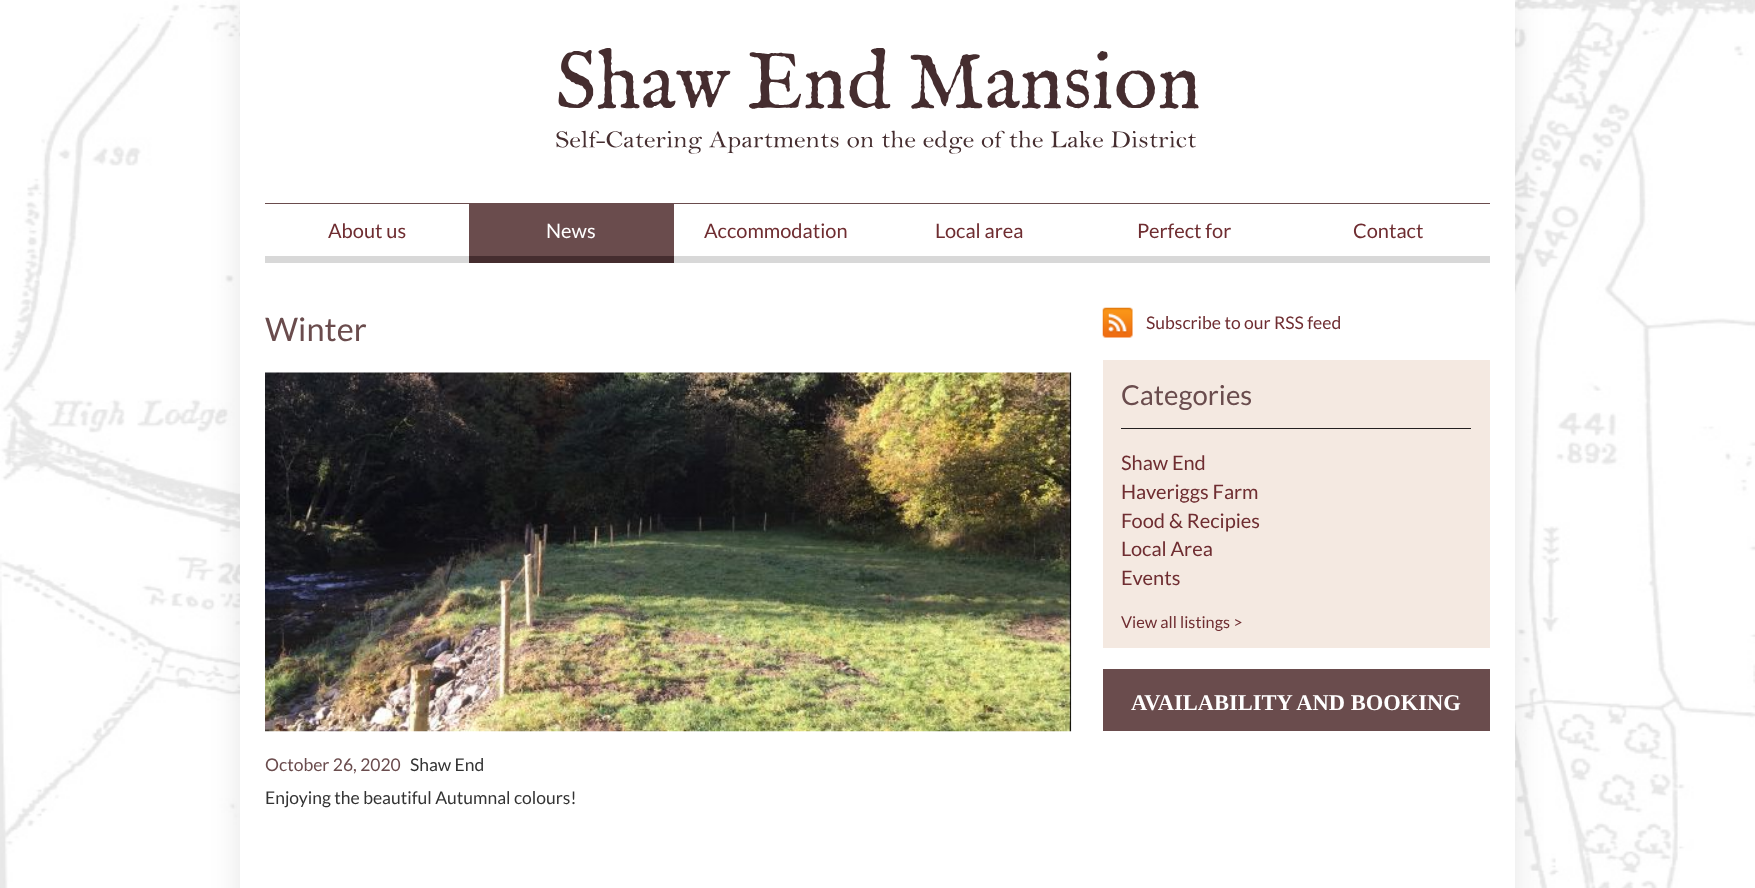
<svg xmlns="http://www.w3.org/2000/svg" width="1755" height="888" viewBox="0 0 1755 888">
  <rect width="100%" height="100%" fill="rgb(255,255,255)"/>
  <image x="0" y="0" width="1755" height="888" href="pic1.png"/>
  <rect x="240" y="0" width="1275" height="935" fill="rgba(0,0,0,0.1)" filter="blur(15.5px)"/>
  <rect x="240" y="0" width="1275" height="888" fill="rgb(255,255,255)"/>
  <image x="556" y="48" width="643" height="106" href="pic2.png"/>
  <rect x="265" y="203" width="1225" height="1" fill="rgb(106,76,77)"/>
  <rect x="265" y="256" width="204" height="7" fill="rgb(216,216,216)"/>
  <text x="328" y="238" font-family="Lato" font-size="20" fill="rgb(111,45,49)">About us</text>
  <rect x="469" y="204" width="205" height="52" fill="rgb(106,76,77)"/>
  <rect x="469" y="256" width="205" height="7" fill="rgb(69,45,47)"/>
  <text x="546" y="238" font-family="Lato" font-size="20" fill="rgb(255,255,255)">News</text>
  <rect x="674" y="256" width="816" height="7" fill="rgb(216,216,216)"/>
  <g font-family="Lato" font-size="20" fill="rgb(111,45,49)">
    <text x="704" y="238">Accommodation</text>
    <text x="935" y="238">Local area</text>
    <text x="1137" y="238">Perfect for</text>
    <text x="1353" y="238">Contact</text>
  </g>
  <text x="265" y="341" font-family="Lato" font-size="32.5" fill="rgb(106,76,77)">Winter</text>
  <image x="265" y="372" width="807" height="360" href="pic3.png"/>
  <text x="265" y="771" font-family="Lato" font-size="17.5" fill="rgb(106,76,77)">October 26, 2020</text>
  <g font-family="Lato" font-size="17.5" fill="rgb(51,51,51)">
    <text x="410" y="771">Shaw End</text>
    <text x="265" y="804">Enjoying the beautiful Autumnal colours!</text>
  </g>
  <image x="1102" y="307" width="31" height="31" href="pic4.png"/>
  <text x="1146" y="329" font-family="Lato" font-size="17.5" fill="rgb(111,45,49)">Subscribe to our RSS feed</text>
  <rect x="1103" y="360" width="387" height="288" fill="rgb(244,233,225)"/>
  <rect x="1121" y="428" width="350" height="1" fill="rgb(35,31,32)"/>
  <text x="1121" y="405" font-family="Lato" font-size="27.5" fill="rgb(106,76,77)">Categories</text>
  <g font-family="Lato" font-size="20" fill="rgb(111,45,49)">
    <text>
      <tspan x="1121" y="470">Shaw End</tspan>
      <tspan x="1121" y="499">Haveriggs Farm</tspan>
      <tspan x="1121" y="528">Food &amp; Recipies</tspan>
      <tspan x="1121" y="556">Local Area</tspan>
      <tspan x="1121" y="585">Events</tspan>
    </text>
  </g>
  <text x="1121" y="628" font-family="Lato" font-size="16.25" fill="rgb(111,45,49)">View all listings &gt;</text>
  <rect x="1103" y="669" width="387" height="62" fill="rgb(106,76,77)"/>
  <text x="1131" y="710" font-family="Liberation Serif" font-size="22.5" font-weight="bold" fill="rgb(255,255,255)">AVAILABILITY AND BOOKING</text>
</svg>
